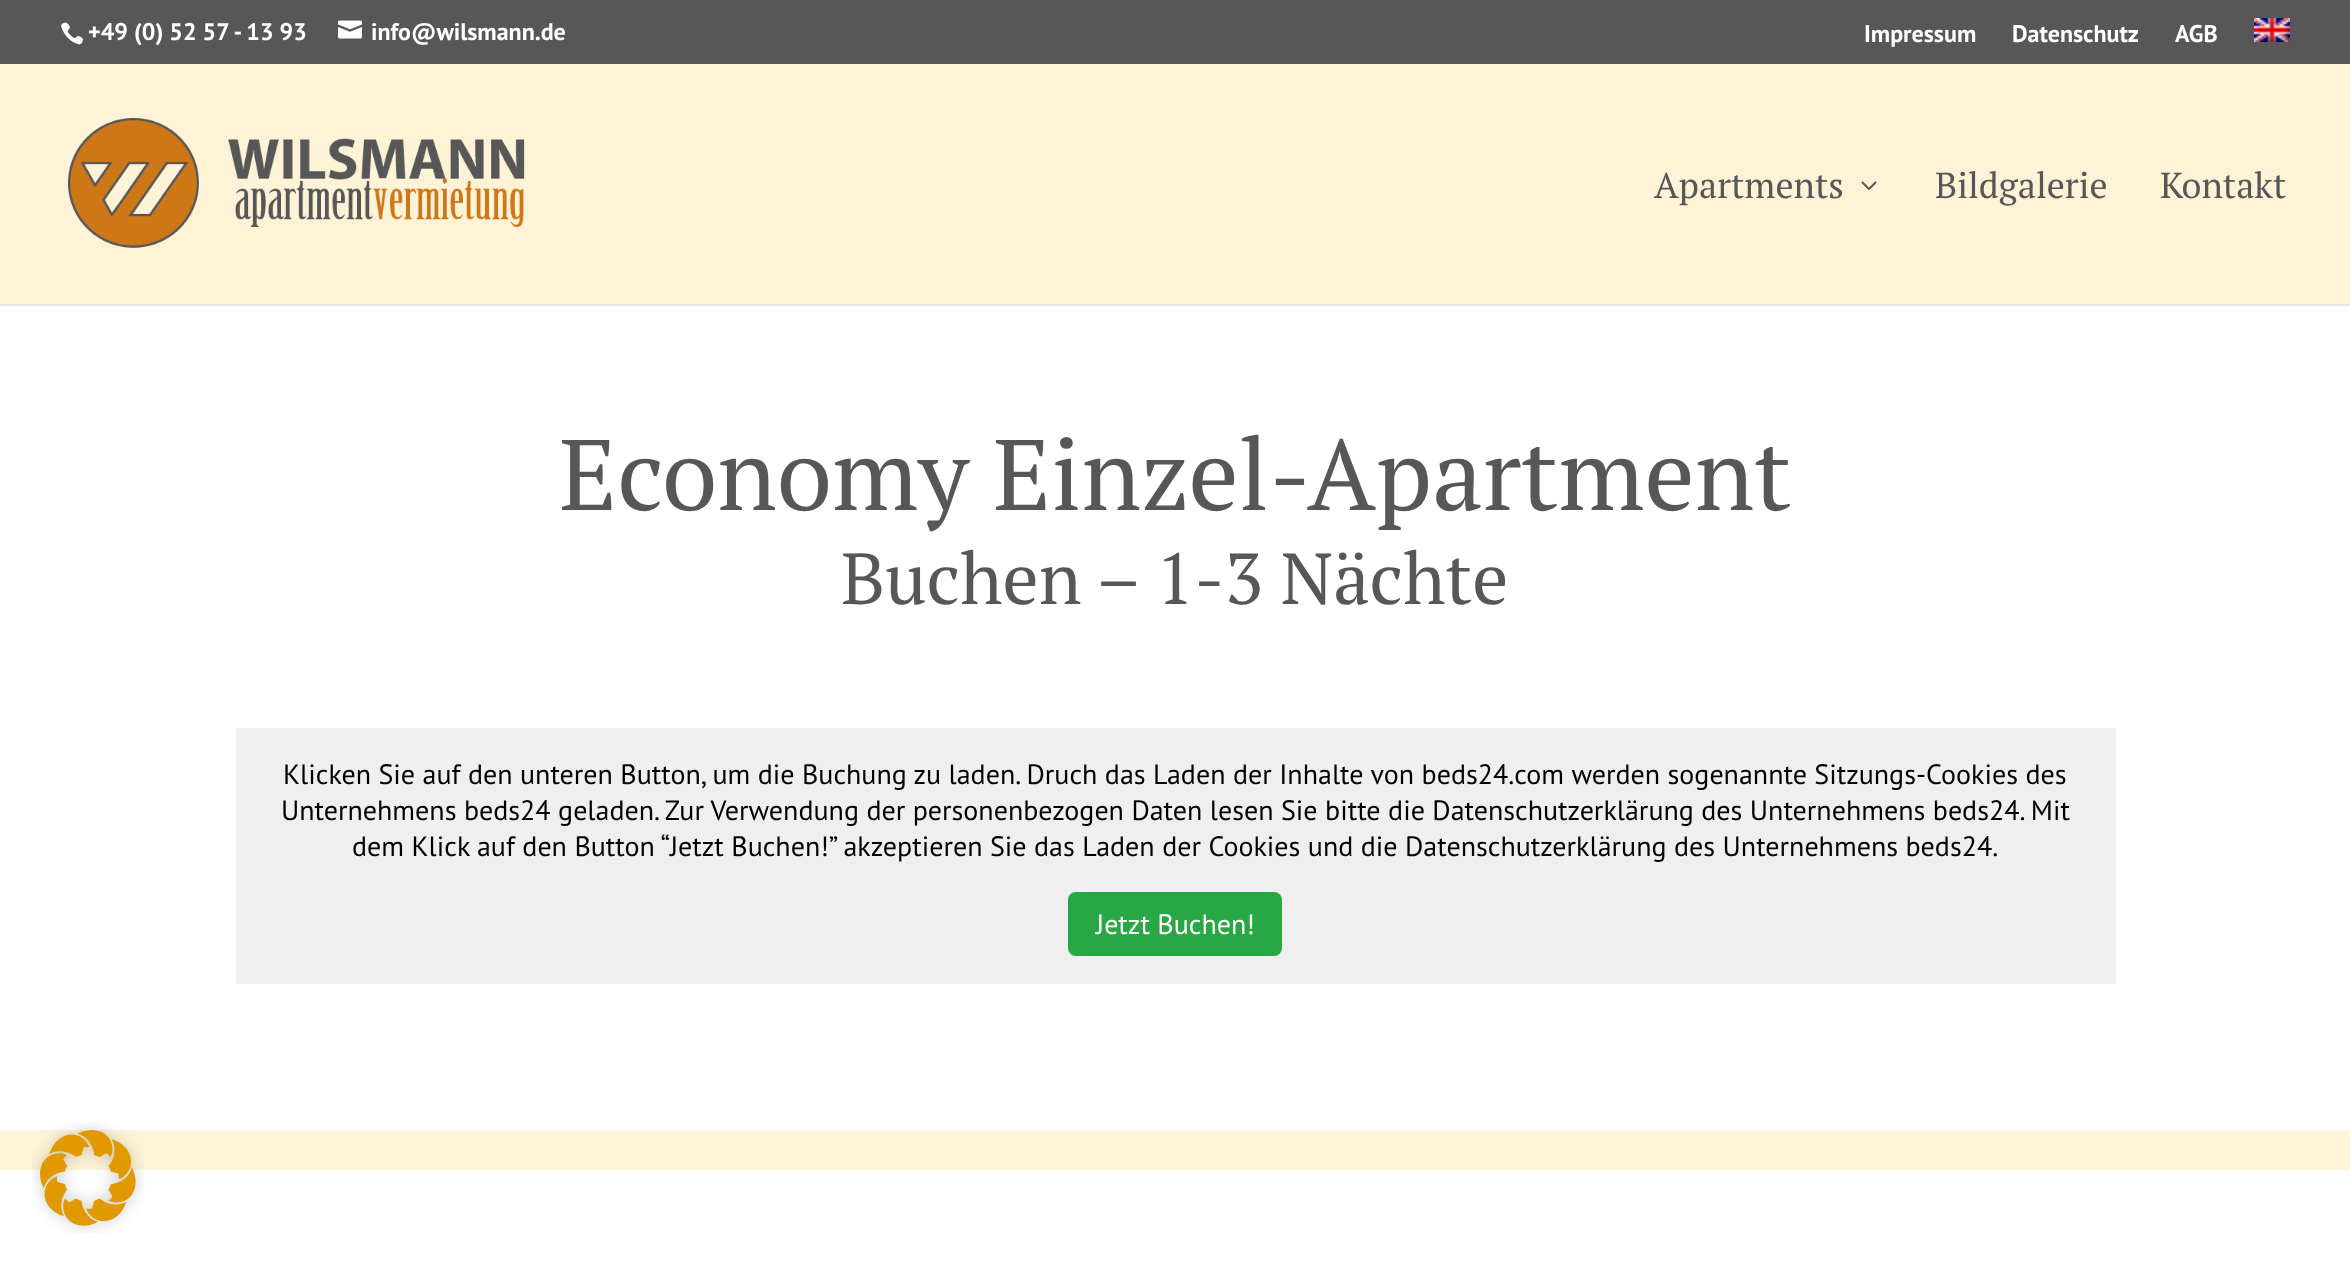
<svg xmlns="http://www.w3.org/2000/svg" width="2350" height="1266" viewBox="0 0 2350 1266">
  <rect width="100%" height="100%" fill="rgb(255,255,255)"/>
  <rect x="0" y="0" width="2350" height="64" fill="rgb(87,87,87)"/>
  <image x="61" y="22" width="22" height="23" href="pic1.png"/>
  <text x="88" y="40" font-family="PT Sans" font-size="24" font-weight="bold" fill="rgb(255,255,255)">+49 (0) 52 57 - 13 93</text>
  <image x="338" y="20" width="24" height="19" href="pic2.png"/>
  <g font-family="PT Sans" font-size="24" font-weight="bold" fill="rgb(255,255,255)">
    <text x="371" y="40">info@wilsmann.de</text>
    <text x="1864" y="42">Impressum</text>
    <text x="2012" y="42">Datenschutz</text>
    <text x="2175" y="42">AGB</text>
  </g>
  <image x="2254" y="18" width="36" height="24" href="pic3.png"/>
  <rect x="0" y="304" width="2350" height="2" fill="rgb(230,230,230)"/>
  <rect x="0" y="64" width="2350" height="240" fill="rgb(255,243,215)"/>
  <image x="68" y="118" width="457" height="130" href="pic4.png"/>
  <text x="1654" y="198" font-family="PT Serif" font-size="36" fill="rgb(88,87,88)">Apartments</text>
  <image x="1861" y="181" width="16" height="9" href="pic5.png"/>
  <g font-family="PT Serif" font-size="36" fill="rgb(88,87,88)">
    <text x="1935" y="198">Bildgalerie</text>
    <text x="2160" y="198">Kontakt</text>
  </g>
  <text x="559" y="510" font-family="PT Serif" font-size="100" fill="rgb(88,87,88)">Economy Einzel-Apartment</text>
  <text x="841" y="604" font-family="PT Serif" font-size="72" fill="rgb(88,87,88)">Buchen – 1-3 Nächte</text>
  <rect x="236" y="728" width="1880" height="256" fill="rgb(239,239,239)"/>
  <g font-family="PT Sans" font-size="28" fill="rgb(0,0,0)">
    <text x="283" y="784">Klicken Sie auf den unteren Button, um die Buchung zu laden. Druch das Laden der Inhalte von beds24.com werden sogenannte Sitzungs-Cookies des</text>
    <text x="281" y="820">Unternehmens beds24 geladen. Zur Verwendung der personenbezogen Daten lesen Sie bitte die Datenschutzerklärung des Unternehmens beds24. Mit</text>
    <text x="352" y="856">dem Klick auf den Button “Jetzt Buchen!” akzeptieren Sie das Laden der Cookies und die Datenschutzerklärung des Unternehmens beds24.</text>
  </g>
  <rect x="1068" y="892" width="214" height="64" rx="8" fill="rgb(40,167,69)"/>
  <text x="1096" y="934" font-family="PT Sans" font-size="28" fill="rgb(255,255,255)">Jetzt Buchen!</text>
  <rect x="0" y="1130" width="2350" height="40" fill="rgb(255,243,215)"/>
  <image x="32" y="1122" width="112" height="112" href="pic6.png"/>
</svg>
